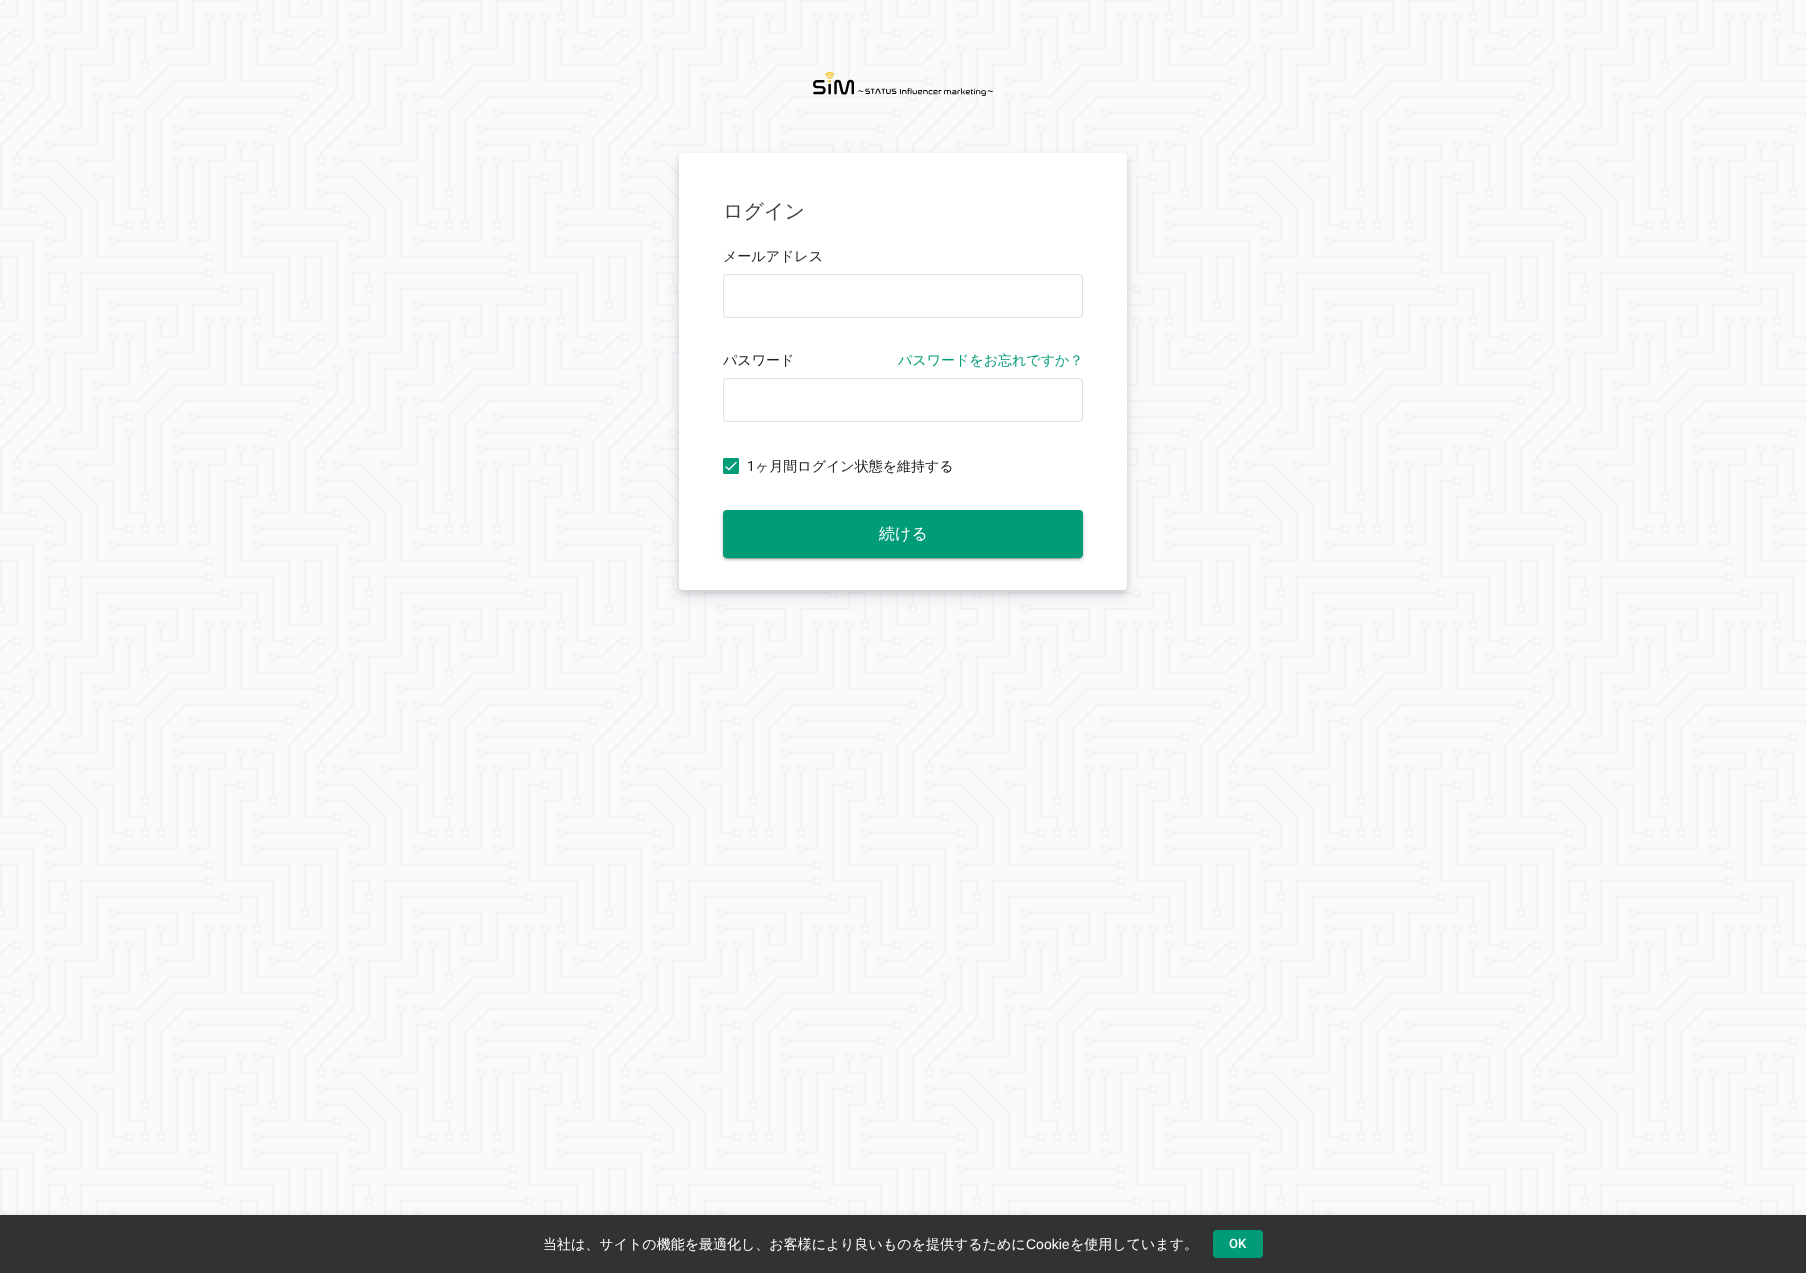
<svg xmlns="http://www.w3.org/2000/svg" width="1806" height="1273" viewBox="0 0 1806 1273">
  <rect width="100%" height="100%" fill="rgb(250,250,250)"/>
  <image x="0" y="0" width="1806" height="1215" href="pic1.png"/>
  <image x="813" y="72" width="180" height="24" href="pic2.png"/>
  <rect x="679" y="156" width="448" height="437" rx="4" fill="rgba(0,0,0,0.12)" filter="blur(3px)"/>
  <rect x="679" y="160" width="448" height="437" rx="4" fill="rgba(60,66,87,0.12)" filter="blur(7px)"/>
  <rect x="679" y="153" width="448" height="437" rx="4" fill="rgb(255,255,255)"/>
  <text x="723" y="218" font-family="WenQuanYi Zen Hei" font-size="20" font-weight="500" fill="rgb(66,66,66)">ログイン</text>
  <text x="723" y="261" font-family="WenQuanYi Zen Hei" font-size="14" font-weight="500" fill="rgb(33,33,33)">メールアドレス</text>
  <rect x="723.5" y="274.5" width="359" height="43" rx="3.5" fill="none" stroke="rgb(224,224,224)"/>
  <text x="723" y="365" font-family="WenQuanYi Zen Hei" font-size="14" font-weight="500" fill="rgb(33,33,33)">パスワード</text>
  <text x="898" y="365" font-family="WenQuanYi Zen Hei" font-size="14" font-weight="500" fill="rgb(0,155,119)">パスワードをお忘れですか？</text>
  <rect x="723.5" y="378.5" width="359" height="43" rx="3.5" fill="none" stroke="rgb(224,224,224)"/>
  <rect x="724" y="459" width="14" height="14" rx="1" fill="none" stroke="rgb(117,117,117)" stroke-width="2"/>
  <rect x="723" y="458" width="16" height="16" rx="2" fill="rgb(0,155,119)"/>
  <path d="M725.5 466.5L729 469.5L736.5 462" fill="none" stroke="rgb(250,250,250)" stroke-width="1.4"/>
  <text x="747" y="471" font-family="Roboto" font-size="14" fill="rgb(33,33,33)">1</text>
  <text x="755" y="471" font-family="WenQuanYi Zen Hei" font-size="14" font-weight="500" fill="rgb(33,33,33)">ヶ月間ログイン状態を維持する</text>
  <rect x="723" y="511" width="360" height="48" rx="4" fill="rgba(0,0,0,0.12)" filter="blur(2.5px)"/>
  <rect x="723" y="512" width="360" height="48" rx="4" fill="rgba(0,0,0,0.14)" filter="blur(1px)"/>
  <rect x="725" y="515" width="356" height="44" rx="2" fill="rgba(0,0,0,0.2)" filter="blur(0.5px)"/>
  <rect x="723" y="510" width="360" height="48" rx="4" fill="rgb(0,155,119)"/>
  <text x="879" y="539" font-family="WenQuanYi Zen Hei" font-size="16" font-weight="500" fill="rgb(255,255,255)">続ける</text>
  <rect x="0" y="1216" width="1806" height="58" fill="rgba(0,0,0,0.12)" filter="blur(4px)"/>
  <rect x="0" y="1215" width="1806" height="58" fill="rgb(50,50,50)"/>
  <text x="543" y="1249" font-family="WenQuanYi Zen Hei" font-size="14" font-weight="500" fill="rgb(255,255,255)">当社は、サイトの機能を最適化し、お客様により良いものを提供するために</text>
  <text x="1026" y="1249" font-family="Liberation Sans" font-size="14" fill="rgb(255,255,255)">Cookie</text>
  <text x="1070" y="1249" font-family="WenQuanYi Zen Hei" font-size="14" font-weight="500" fill="rgb(255,255,255)">を使用しています。</text>
  <rect x="1213" y="1230" width="50" height="28" rx="4" fill="rgb(0,155,119)"/>
  <text x="1229" y="1248" font-family="Roboto" font-size="13" font-weight="500" fill="rgb(255,255,255)">OK</text>
</svg>
